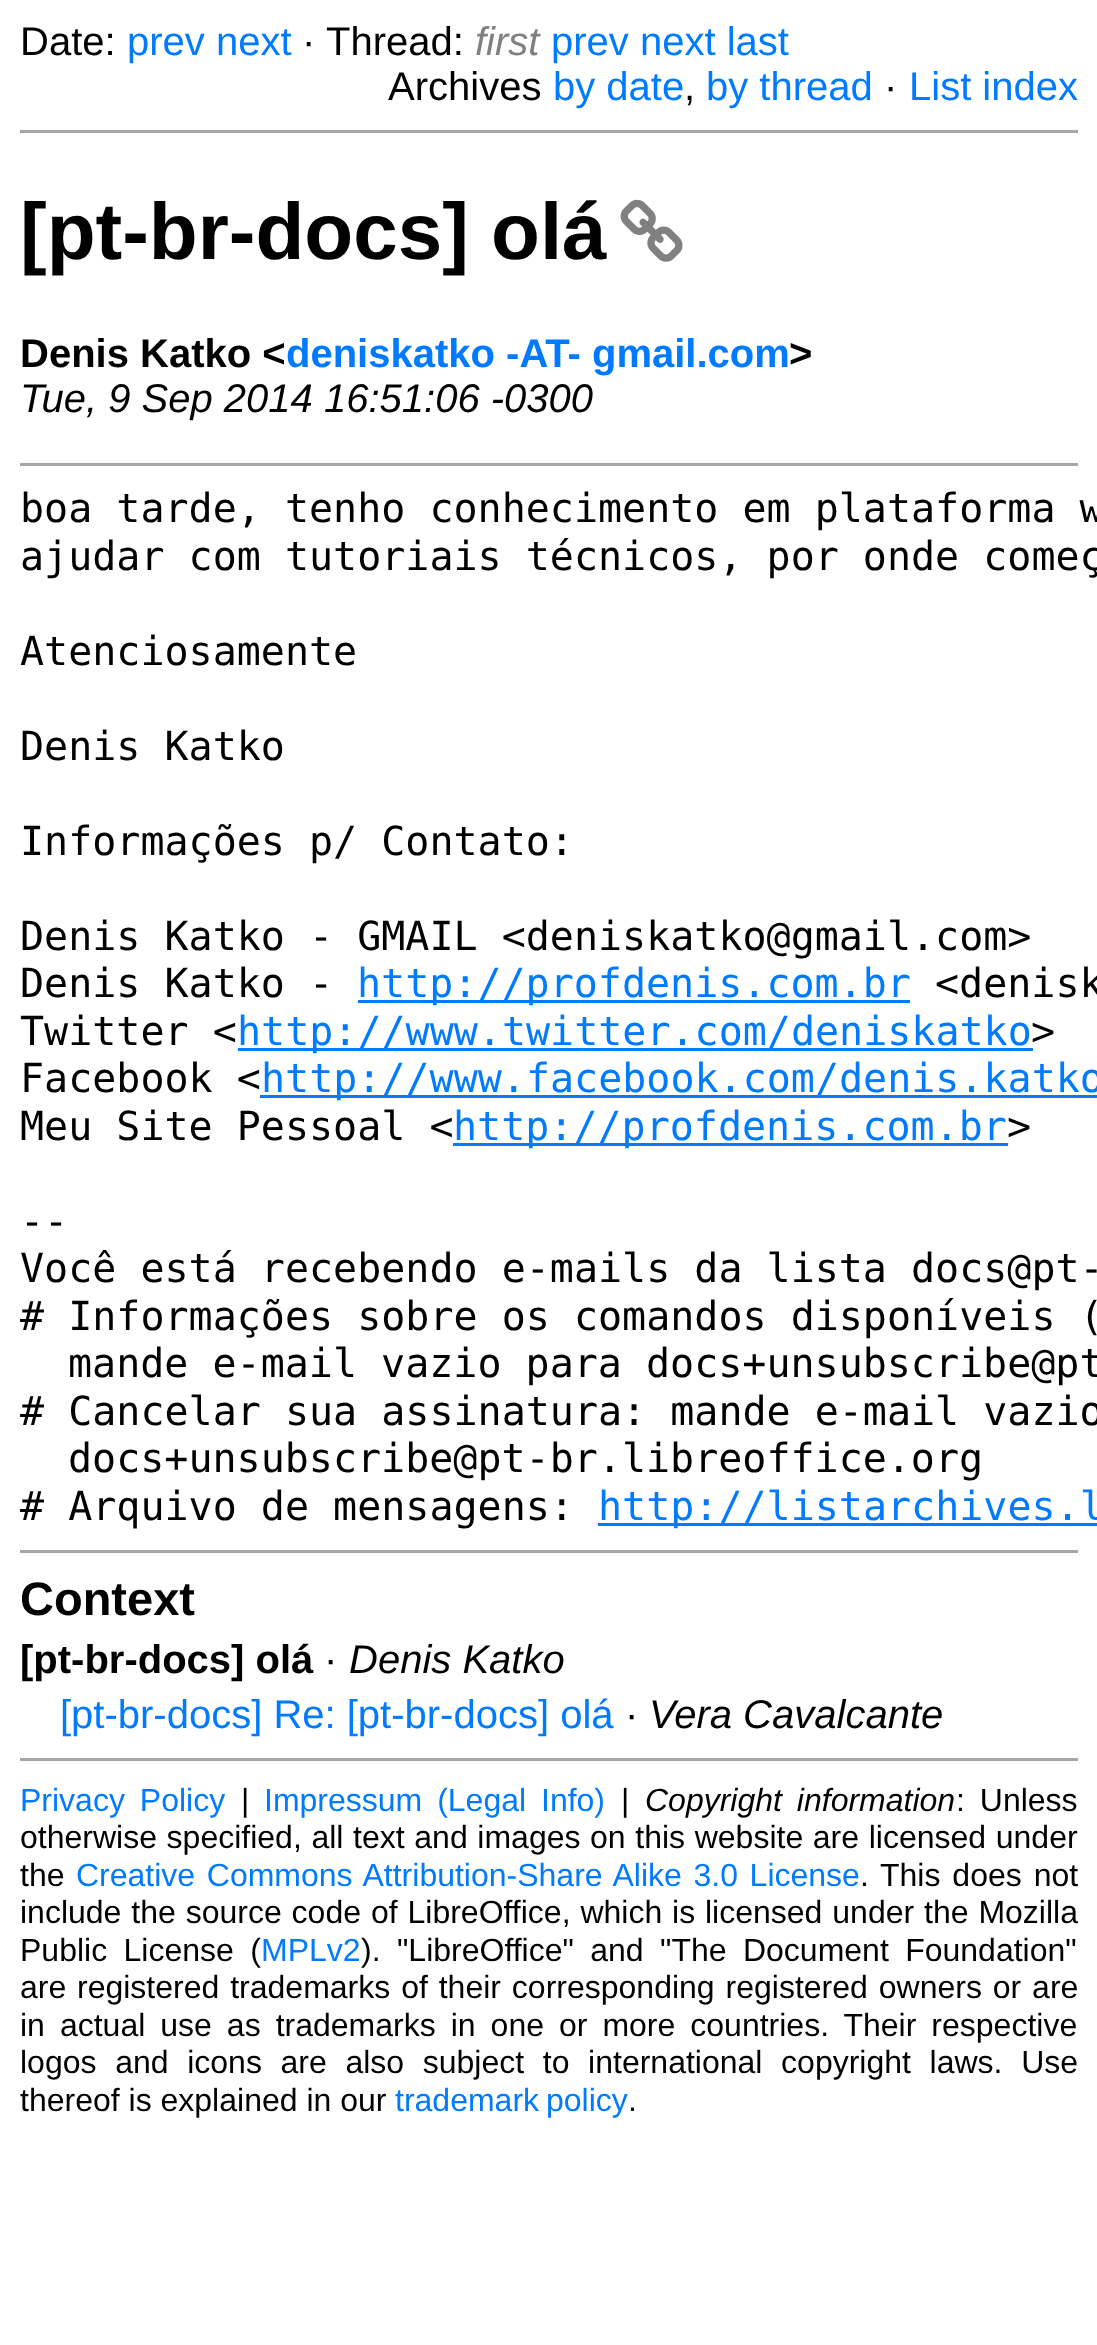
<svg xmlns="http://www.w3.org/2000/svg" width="1097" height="2345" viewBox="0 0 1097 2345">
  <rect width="100%" height="100%" fill="rgb(255,255,255)"/>
  <text x="20" y="55" font-family="Liberation Sans" font-size="40" fill="rgb(0,0,0)">Date:</text>
  <text x="127" y="55" font-family="Liberation Sans" font-size="40" fill="rgb(0,123,255)">prev next</text>
  <g font-family="Liberation Sans" font-size="40" fill="rgb(0,0,0)">
    <text x="302" y="55">·</text>
    <text x="326" y="55">Thread:</text>
  </g>
  <text x="475" y="55" font-family="Liberation Sans" font-size="40" font-style="italic" fill="rgb(128,128,128)">first</text>
  <text x="551" y="55" font-family="Liberation Sans" font-size="40" fill="rgb(0,123,255)">prev next last</text>
  <text x="388" y="100" font-family="Liberation Sans" font-size="40" fill="rgb(0,0,0)">Archives</text>
  <g font-family="Liberation Sans" font-size="40" fill="rgb(0,123,255)">
    <text x="553" y="100">by date</text>
    <text x="706" y="100">by thread</text>
  </g>
  <text x="884" y="100" font-family="Liberation Sans" font-size="40" fill="rgb(0,0,0)">·</text>
  <text x="909" y="100" font-family="Liberation Sans" font-size="40" fill="rgb(0,123,255)">List index</text>
  <text x="684" y="100" font-family="Liberation Sans" font-size="40" fill="rgb(0,0,0)">,</text>
  <rect x="20" y="130" width="1058" height="3" fill="rgb(166,166,166)"/>
  <text x="20" y="259" font-family="Liberation Sans" font-size="80" font-weight="bold" fill="rgb(0,0,0)">[pt-br-docs] olá</text>
  <image x="620" y="199" width="63" height="63" href="pic1.png"/>
  <text x="20" y="367" font-family="Liberation Sans" font-size="40" font-weight="bold" fill="rgb(0,0,0)">Denis Katko &lt;</text>
  <text x="286" y="367" font-family="Liberation Sans" font-size="40" font-weight="bold" fill="rgb(0,123,255)">deniskatko -AT- gmail.com</text>
  <text x="789" y="367" font-family="Liberation Sans" font-size="40" font-weight="bold" fill="rgb(0,0,0)">&gt;</text>
  <text x="20" y="412" font-family="Liberation Sans" font-size="40" font-style="italic" fill="rgb(0,0,0)">Tue, 9 Sep 2014 16:51:06 -0300</text>
  <rect x="20" y="463" width="1058" height="3" fill="rgb(166,166,166)"/>
  <g font-family="DejaVu Sans Mono" font-size="40" fill="rgb(0,0,0)">
    <text>
      <tspan x="20" y="522">boa tarde, tenho conhecimento em plataforma w</tspan>
      <tspan x="20" y="570">ajudar com tutoriais técnicos, por onde começ</tspan>
    </text>
    <text x="20" y="665">Atenciosamente</text>
    <text x="20" y="760">Denis Katko</text>
    <text x="20" y="855">Informações p/ Contato:</text>
    <text>
      <tspan x="20" y="950">Denis Katko - GMAIL &lt;deniskatko@gmail.com&gt;</tspan>
      <tspan x="20" y="997">Denis Katko -</tspan>
    </text>
  </g>
  <rect x="358" y="1000" width="552" height="3" fill="rgb(0,123,255)"/>
  <text x="357" y="997" font-family="DejaVu Sans Mono" font-size="40" fill="rgb(0,123,255)">http://profdenis.com.br</text>
  <g font-family="DejaVu Sans Mono" font-size="40" fill="rgb(0,0,0)">
    <text x="935" y="997">&lt;denisk</text>
    <text x="20" y="1045">Twitter &lt;</text>
  </g>
  <rect x="238" y="1048" width="795" height="3" fill="rgb(0,123,255)"/>
  <text x="237" y="1045" font-family="DejaVu Sans Mono" font-size="40" fill="rgb(0,123,255)">http://www.twitter.com/deniskatko</text>
  <g font-family="DejaVu Sans Mono" font-size="40" fill="rgb(0,0,0)">
    <text x="1031" y="1045">&gt;</text>
    <text x="20" y="1092">Facebook &lt;</text>
  </g>
  <rect x="260" y="1095" width="837" height="3" fill="rgb(0,123,255)"/>
  <text x="261" y="1092" font-family="DejaVu Sans Mono" font-size="40" fill="rgb(0,123,255)">http://www.facebook.com/denis.katko</text>
  <text x="20" y="1140" font-family="DejaVu Sans Mono" font-size="40" fill="rgb(0,0,0)">Meu Site Pessoal &lt;</text>
  <rect x="453" y="1143" width="555" height="3" fill="rgb(0,123,255)"/>
  <text x="453" y="1140" font-family="DejaVu Sans Mono" font-size="40" fill="rgb(0,123,255)">http://profdenis.com.br</text>
  <g font-family="DejaVu Sans Mono" font-size="40" fill="rgb(0,0,0)">
    <text x="1007" y="1140">&gt;</text>
    <text>
      <tspan x="20" y="1235">--</tspan>
      <tspan x="20" y="1282">Você está recebendo e-mails da lista docs@pt-</tspan>
      <tspan x="20" y="1330"># Informações sobre os comandos disponíveis (</tspan>
    </text>
    <text x="68" y="1377">mande e-mail vazio para docs+unsubscribe@pt</text>
    <text x="20" y="1425"># Cancelar sua assinatura: mande e-mail vazio</text>
    <text x="68" y="1472">docs+unsubscribe@pt-br.libreoffice.org</text>
    <text x="20" y="1520"># Arquivo de mensagens:</text>
  </g>
  <rect x="598" y="1523" width="499" height="3" fill="rgb(0,123,255)"/>
  <text x="598" y="1520" font-family="DejaVu Sans Mono" font-size="40" fill="rgb(0,123,255)">http://listarchives.l</text>
  <rect x="20" y="1550" width="1058" height="3" fill="rgb(166,166,166)"/>
  <text x="20" y="1615" font-family="Liberation Sans" font-size="47" font-weight="bold" fill="rgb(0,0,0)">Context</text>
  <text x="20" y="1673" font-family="Liberation Sans" font-size="40" font-weight="bold" fill="rgb(0,0,0)">[pt-br-docs] olá</text>
  <text x="324" y="1673" font-family="Liberation Sans" font-size="40" fill="rgb(0,0,0)">·</text>
  <text x="349" y="1673" font-family="Liberation Sans" font-size="40" font-style="italic" fill="rgb(0,0,0)">Denis Katko</text>
  <text x="60" y="1728" font-family="Liberation Sans" font-size="40" fill="rgb(0,123,255)">[pt-br-docs] Re: [pt-br-docs] olá</text>
  <text x="625" y="1728" font-family="Liberation Sans" font-size="40" fill="rgb(0,0,0)">·</text>
  <text x="649" y="1728" font-family="Liberation Sans" font-size="40" font-style="italic" fill="rgb(0,0,0)">Vera Cavalcante</text>
  <rect x="20" y="1758" width="1058" height="3" fill="rgb(166,166,166)"/>
  <text x="20" y="1811" word-spacing="6" font-family="Liberation Sans" font-size="32" fill="rgb(0,123,255)">Privacy Policy</text>
  <text x="241" y="1811" font-family="Liberation Sans" font-size="32" fill="rgb(0,0,0)">|</text>
  <text x="264" y="1811" word-spacing="6" font-family="Liberation Sans" font-size="32" fill="rgb(0,123,255)">Impressum (Legal Info)</text>
  <text x="621" y="1811" font-family="Liberation Sans" font-size="32" fill="rgb(0,0,0)">|</text>
  <text x="645" y="1811" word-spacing="6" font-family="Liberation Sans" font-size="32" font-style="italic" fill="rgb(0,0,0)">Copyright information</text>
  <g font-family="Liberation Sans" font-size="32" fill="rgb(0,0,0)">
    <text x="956" y="1811" word-spacing="6">: Unless</text>
    <text x="20" y="1848" word-spacing="0.75">otherwise specified, all text and images</text>
    <text x="590" y="1848" word-spacing="0.75">on this website are licensed under</text>
    <text x="20" y="1886">the</text>
  </g>
  <text x="76" y="1886" word-spacing="2.75" font-family="Liberation Sans" font-size="32" fill="rgb(0,123,255)">Creative Commons Attribution-Share Alike 3.0 License</text>
  <g font-family="Liberation Sans" font-size="32" fill="rgb(0,0,0)">
    <text x="860" y="1886">.</text>
    <text x="880" y="1886" word-spacing="3">This does not</text>
    <text x="20" y="1923" word-spacing="1">include the source code of LibreOffice, which is</text>
    <text x="705" y="1923" word-spacing="1">licensed under the Mozilla</text>
    <text x="20" y="1961" word-spacing="7.5">Public License (</text>
  </g>
  <text x="261" y="1961" font-family="Liberation Sans" font-size="32" fill="rgb(0,123,255)">MPLv2</text>
  <g font-family="Liberation Sans" font-size="32" fill="rgb(0,0,0)">
    <text x="361" y="1961">).</text>
    <text x="397" y="1961" word-spacing="7.5">"LibreOffice" and "The Document Foundation"</text>
    <text x="20" y="1998">are</text>
    <text x="77" y="1998" word-spacing="2">registered trademarks of their corresponding registered owners or are</text>
    <text>
      <tspan x="20" y="2036" word-spacing="6.1">in actual use as trademarks in one or more countries. Their respective</tspan>
      <tspan x="20" y="2073" word-spacing="9.75">logos and icons are also subject to international copyright laws. Use</tspan>
      <tspan x="20" y="2111">thereof is explained in our</tspan>
    </text>
  </g>
  <text x="395" y="2111" word-spacing="-2" font-family="Liberation Sans" font-size="32" fill="rgb(0,123,255)">trademark policy</text>
  <text x="628" y="2111" font-family="Liberation Sans" font-size="32" fill="rgb(0,0,0)">.</text>
</svg>
